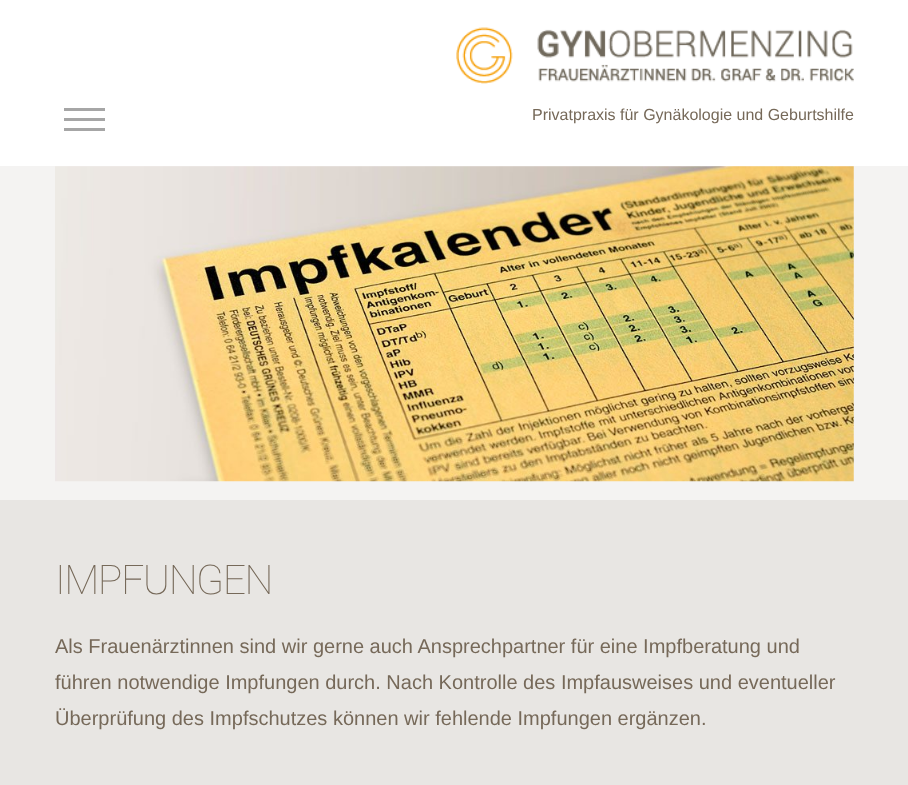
<svg xmlns="http://www.w3.org/2000/svg" width="908" height="785" viewBox="0 0 908 785">
  <rect width="100%" height="100%" fill="rgb(244,243,242)"/>
  <rect x="0" y="0" width="908" height="166" fill="rgb(255,255,255)"/>
  <rect x="64" y="108" width="41" height="3" fill="rgb(166,166,166)"/>
  <rect x="64" y="118" width="41" height="3" fill="rgb(166,166,166)"/>
  <rect x="64" y="128" width="41" height="3" fill="rgb(166,166,166)"/>
  <image x="456" y="27" width="398" height="57" href="pic1.png"/>
  <text x="532" y="120" font-family="Liberation Sans" font-size="16" fill="rgb(118,105,89)">Privatpraxis für Gynäkologie und Geburtshilfe</text>
  <image x="55" y="166" width="799" height="316" href="pic2.png"/>
  <rect x="0" y="500" width="908" height="285" fill="rgb(232,230,227)"/>
  <text x="55" y="594" font-family="Yantramanav" font-size="45.5" font-weight="100" letter-spacing="-1.5" fill="rgb(118,105,89)">IMPFUNGEN</text>
  <g font-family="Liberation Sans" font-size="20" fill="rgb(118,105,89)">
    <text>
      <tspan x="55" y="653">Als Frauenärztinnen sind wir gerne auch Ansprechpartner für eine Impfberatung und</tspan>
      <tspan x="55" y="689">führen notwendige Impfungen durch. Nach Kontrolle des Impfausweises und eventueller</tspan>
      <tspan x="55" y="725">Überprüfung des Impfschutzes können wir fehlende Impfungen ergänzen.</tspan>
    </text>
  </g>
</svg>
